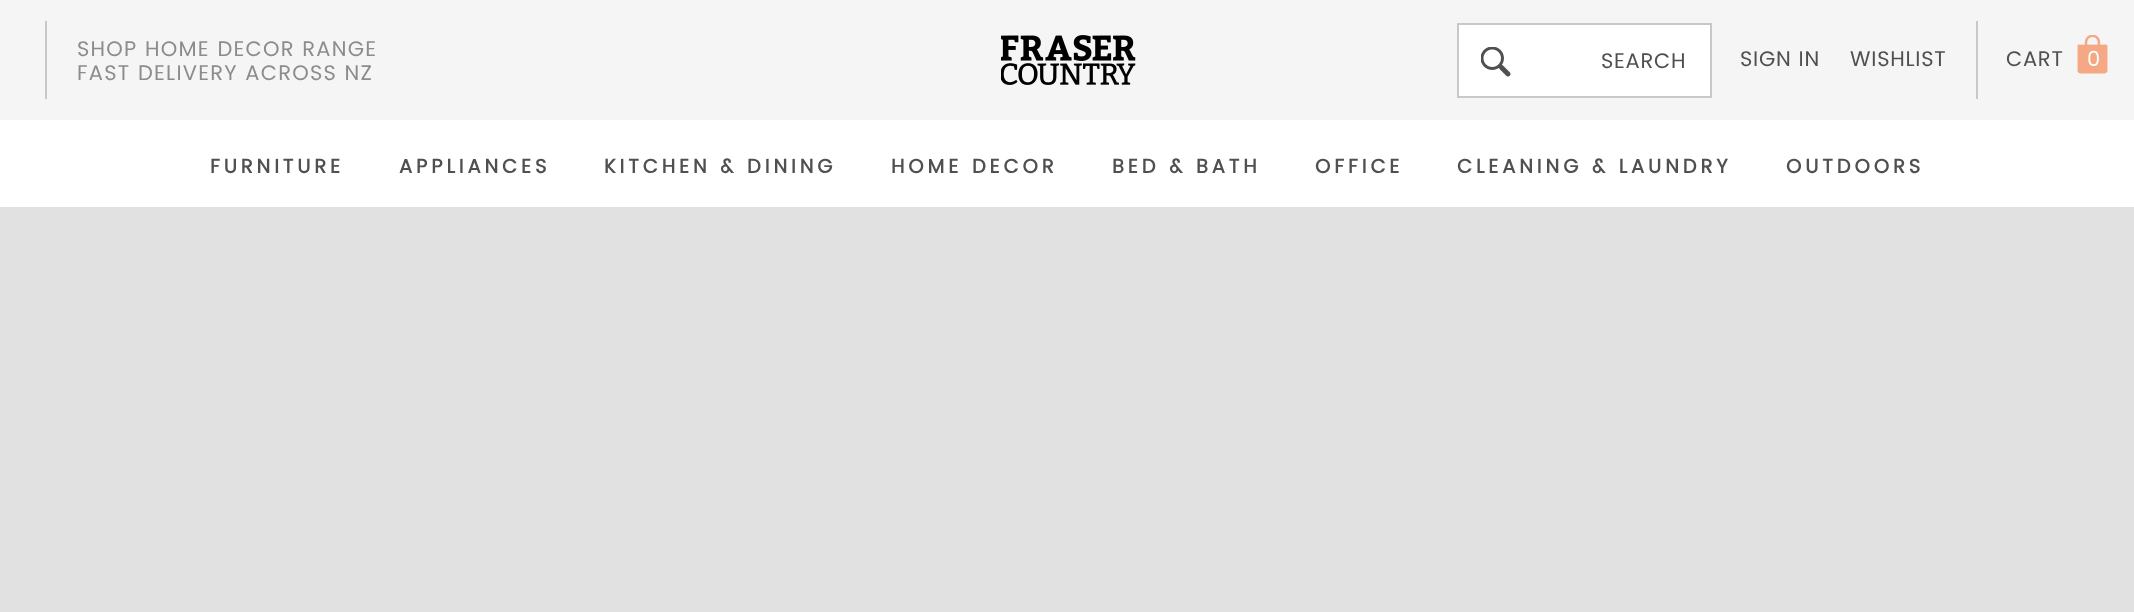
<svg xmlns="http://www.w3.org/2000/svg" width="2134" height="612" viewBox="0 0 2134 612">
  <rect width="100%" height="100%" fill="rgb(255,255,255)"/>
  <rect x="0" y="0" width="2134" height="120" fill="rgb(245,245,245)"/>
  <rect x="45" y="21" width="2" height="78" fill="rgb(200,200,200)"/>
  <g font-family="Poppins" font-size="21" letter-spacing="1.25" fill="rgb(140,140,140)">
    <text>
      <tspan x="77" y="56">SHOP HOME DECOR RANGE</tspan>
      <tspan x="77" y="80">FAST DELIVERY ACROSS NZ</tspan>
    </text>
  </g>
  <image x="1001" y="35" width="135" height="50" href="pic1.png"/>
  <rect x="1458" y="24" width="253" height="73" fill="rgb(255,255,255)" stroke="rgb(200,200,200)" stroke-width="2"/>
  <image x="1481" y="47" width="30" height="30" href="pic2.png"/>
  <g font-family="Poppins" font-size="21" letter-spacing="0.75" fill="rgb(80,80,80)">
    <text x="1601" y="68">SEARCH</text>
    <text x="1740" y="66">SIGN IN</text>
    <text x="1850" y="66">WISHLIST</text>
  </g>
  <rect x="1976" y="21" width="2" height="78" fill="rgb(200,200,200)"/>
  <text x="2006" y="66" font-family="Poppins" font-size="21" letter-spacing="0.75" fill="rgb(80,80,80)">CART</text>
  <image x="2077" y="35" width="31" height="39" href="pic3.png"/>
  <text x="2087" y="66" font-family="Poppins" font-size="21" letter-spacing="0.75" fill="rgb(255,255,255)">0</text>
  <g font-family="Poppins" font-size="19.5" font-weight="bold" letter-spacing="3.9" fill="rgb(80,80,80)">
    <text x="210" y="173">FURNITURE</text>
    <text x="399" y="173">APPLIANCES</text>
    <text x="604" y="173">KITCHEN &amp; DINING</text>
    <text x="891" y="173">HOME DECOR</text>
    <text x="1112" y="173">BED &amp; BATH</text>
    <text x="1315" y="173">OFFICE</text>
    <text x="1457" y="173">CLEANING &amp; LAUNDRY</text>
    <text x="1786" y="173">OUTDOORS</text>
  </g>
  <rect x="0" y="207" width="2134" height="405" fill="rgb(225,225,225)"/>
</svg>
